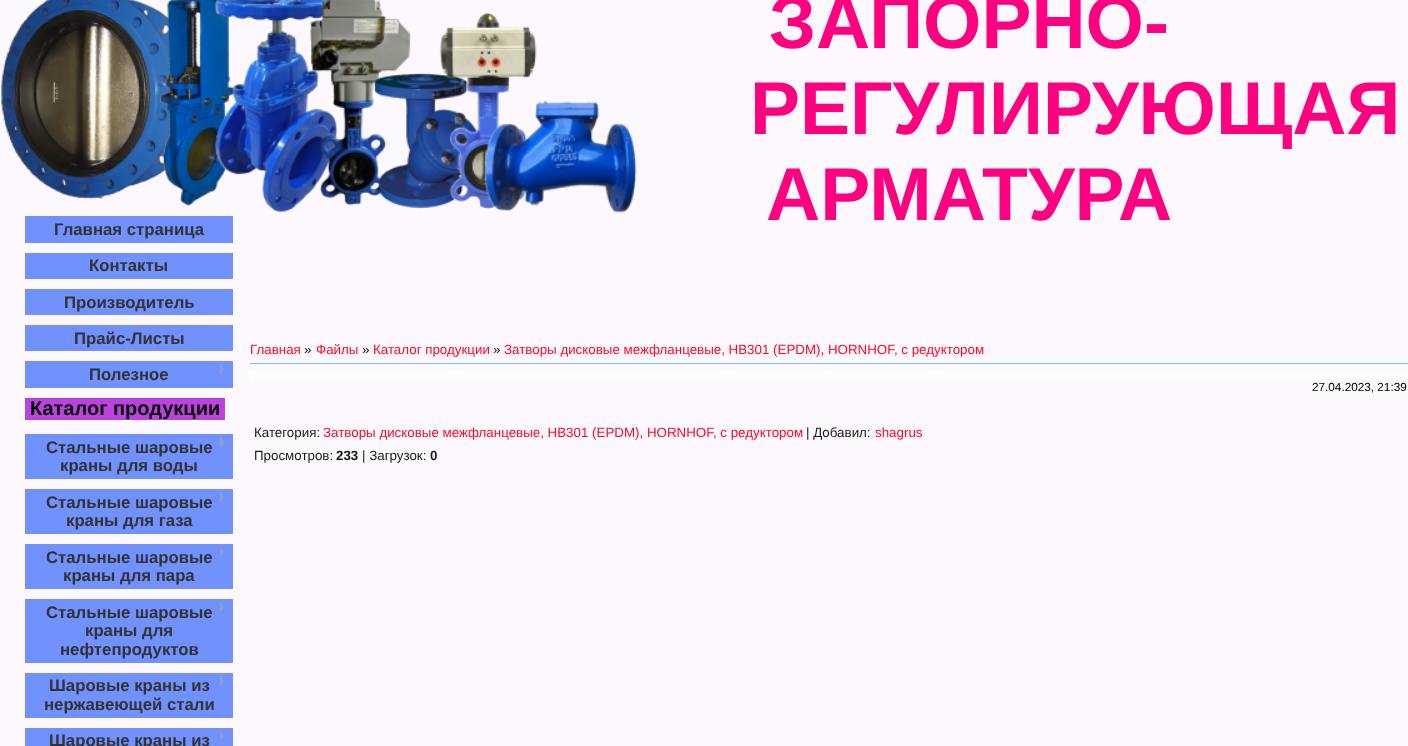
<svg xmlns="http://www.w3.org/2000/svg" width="1408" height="746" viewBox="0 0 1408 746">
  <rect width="100%" height="100%" fill="rgb(252,248,253)"/>
  <image x="1" y="0" width="636" height="213" href="pic1.png"/>
  <g font-family="Liberation Sans" font-size="75" font-weight="bold" fill="rgb(255,0,128)">
    <text x="769" y="48">ЗАПОРНО-</text>
    <text x="750" y="134">РЕГУЛИРУЮЩАЯ</text>
    <text x="766" y="220">АРМАТУРА</text>
  </g>
  <rect x="25" y="216" width="208" height="27" fill="rgb(113,145,254)"/>
  <text x="54" y="235" font-family="Liberation Sans" font-size="16.75" font-weight="bold" fill="rgb(50,50,51)">Главная страница</text>
  <rect x="25" y="253" width="208" height="26" fill="rgb(113,145,254)"/>
  <text x="89" y="271" font-family="Liberation Sans" font-size="16.75" font-weight="bold" fill="rgb(50,50,51)">Контакты</text>
  <rect x="25" y="289" width="208" height="26" fill="rgb(113,145,254)"/>
  <text x="64" y="308" font-family="Liberation Sans" font-size="16.75" font-weight="bold" fill="rgb(50,50,51)">Производитель</text>
  <rect x="25" y="325" width="208" height="26" fill="rgb(113,145,254)"/>
  <text x="74" y="344" font-family="Liberation Sans" font-size="16.75" font-weight="bold" fill="rgb(50,50,51)">Прайс-Листы</text>
  <rect x="25" y="361" width="208" height="27" fill="rgb(113,145,254)"/>
  <text x="89" y="380" font-family="Liberation Sans" font-size="16.75" font-weight="bold" fill="rgb(50,50,51)">Полезное</text>
  <image x="220" y="365" width="5" height="9" href="pic2.png"/>
  <rect x="25" y="398" width="200" height="22" fill="rgb(187,66,220)"/>
  <text x="30" y="415" font-family="Liberation Sans" font-size="20" font-weight="bold" fill="rgb(0,0,0)">Каталог продукции</text>
  <rect x="25" y="434" width="208" height="45" fill="rgb(113,145,254)"/>
  <text x="46" y="453" font-family="Liberation Sans" font-size="16.75" font-weight="bold" fill="rgb(50,50,51)">Стальные шаровые</text>
  <image x="220" y="437" width="5" height="10" href="pic3.png"/>
  <text x="60" y="471" font-family="Liberation Sans" font-size="16.75" font-weight="bold" fill="rgb(50,50,51)">краны для воды</text>
  <rect x="25" y="489" width="208" height="45" fill="rgb(113,145,254)"/>
  <text x="46" y="508" font-family="Liberation Sans" font-size="16.75" font-weight="bold" fill="rgb(50,50,51)">Стальные шаровые</text>
  <image x="220" y="492" width="5" height="10" href="pic3.png"/>
  <text x="66" y="526" font-family="Liberation Sans" font-size="16.75" font-weight="bold" fill="rgb(50,50,51)">краны для газа</text>
  <rect x="25" y="544" width="208" height="45" fill="rgb(113,145,254)"/>
  <text x="46" y="563" font-family="Liberation Sans" font-size="16.75" font-weight="bold" fill="rgb(50,50,51)">Стальные шаровые</text>
  <image x="220" y="547" width="5" height="10" href="pic3.png"/>
  <text x="63" y="581" font-family="Liberation Sans" font-size="16.75" font-weight="bold" fill="rgb(50,50,51)">краны для пара</text>
  <rect x="25" y="599" width="208" height="64" fill="rgb(113,145,254)"/>
  <text x="46" y="618" font-family="Liberation Sans" font-size="16.75" font-weight="bold" fill="rgb(50,50,51)">Стальные шаровые</text>
  <image x="220" y="602" width="5" height="10" href="pic3.png"/>
  <g font-family="Liberation Sans" font-size="16.75" font-weight="bold" fill="rgb(50,50,51)">
    <text x="85" y="636">краны для</text>
    <text x="60" y="655">нефтепродуктов</text>
  </g>
  <rect x="25" y="673" width="208" height="45" fill="rgb(113,145,254)"/>
  <text x="49" y="691" font-family="Liberation Sans" font-size="16.75" font-weight="bold" fill="rgb(50,50,51)">Шаровые краны из</text>
  <image x="220" y="676" width="5" height="10" href="pic4.png"/>
  <text x="44" y="710" font-family="Liberation Sans" font-size="16.75" font-weight="bold" fill="rgb(50,50,51)">нержавеющей стали</text>
  <rect x="25" y="728" width="208" height="18" fill="rgb(113,145,254)"/>
  <text x="49" y="746" font-family="Liberation Sans" font-size="16.75" font-weight="bold" fill="rgb(50,50,51)">Шаровые краны из</text>
  <image x="220" y="731" width="5" height="10" href="pic4.png"/>
  <text x="250" y="354" font-family="Liberation Sans" font-size="13.35" fill="rgb(252,10,42)">Главная</text>
  <text x="304" y="354" font-family="Liberation Sans" font-size="13.35" fill="rgb(0,0,0)">»</text>
  <text x="316" y="354" font-family="Liberation Sans" font-size="13.35" fill="rgb(252,10,42)">Файлы</text>
  <text x="362" y="354" font-family="Liberation Sans" font-size="13.35" fill="rgb(0,0,0)">»</text>
  <text x="373" y="354" font-family="Liberation Sans" font-size="13.35" fill="rgb(252,10,42)">Каталог продукции</text>
  <text x="493" y="354" font-family="Liberation Sans" font-size="13.35" fill="rgb(0,0,0)">»</text>
  <text x="504" y="354" font-family="Liberation Sans" font-size="13.35" fill="rgb(252,10,42)">Затворы дисковые межфланцевые, HB301 (EPDM), HORNHOF, c редуктором</text>
  <rect x="250" y="363" width="1158" height="1" fill="rgb(118,197,240)"/>
  <rect x="250" y="371" width="1158" height="8" fill="rgb(255,255,255)"/>
  <text x="1312" y="391" font-family="Liberation Sans" font-size="11.75" fill="rgb(0,0,0)">27.04.2023, 21:39</text>
  <text x="254" y="437" font-family="Liberation Sans" font-size="13.35" fill="rgb(26,26,26)">Категория:</text>
  <text x="323" y="437" font-family="Liberation Sans" font-size="13.35" fill="rgb(252,10,42)">Затворы дисковые межфланцевые, HB301 (EPDM), HORNHOF, c редуктором</text>
  <text x="806" y="437" font-family="Liberation Sans" font-size="13.35" fill="rgb(26,26,26)">| Добавил:</text>
  <text x="875" y="437" font-family="Liberation Sans" font-size="13.35" fill="rgb(252,10,42)">shagrus</text>
  <text x="254" y="460" font-family="Liberation Sans" font-size="13.35" fill="rgb(26,26,26)">Просмотров:</text>
  <text x="336" y="460" font-family="Liberation Sans" font-size="13.35" font-weight="bold" fill="rgb(26,26,26)">233</text>
  <text x="362" y="460" font-family="Liberation Sans" font-size="13.35" fill="rgb(26,26,26)">| Загрузок:</text>
  <text x="430" y="460" font-family="Liberation Sans" font-size="13.35" font-weight="bold" fill="rgb(26,26,26)">0</text>
</svg>
